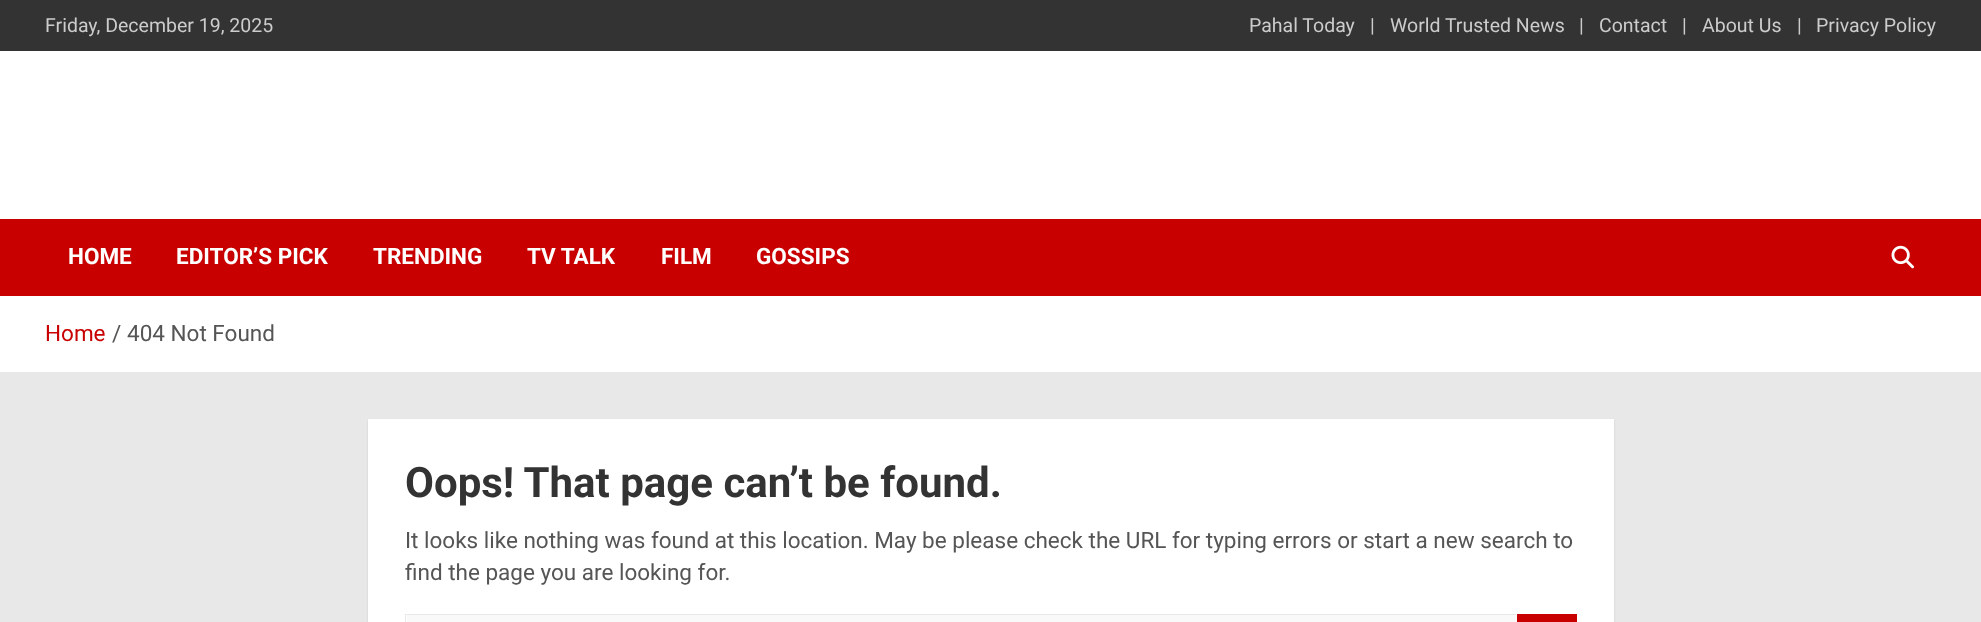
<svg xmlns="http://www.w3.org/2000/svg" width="1981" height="622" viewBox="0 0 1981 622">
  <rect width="100%" height="100%" fill="rgb(232,232,232)"/>
  <rect x="0" y="0" width="1981" height="51" fill="rgb(51,51,51)"/>
  <g font-family="Roboto" font-size="19.5" fill="rgb(204,204,204)">
    <text x="45" y="32">Friday, December 19, 2025</text>
    <text x="1249" y="32">Pahal Today</text>
    <text x="1370" y="32">|</text>
    <text x="1390" y="32">World Trusted News</text>
    <text x="1579" y="32">|</text>
    <text x="1599" y="32">Contact</text>
    <text x="1682" y="32">|</text>
    <text x="1702" y="32">About Us</text>
    <text x="1797" y="32">|</text>
    <text x="1816" y="32">Privacy Policy</text>
  </g>
  <rect x="0" y="51" width="1981" height="168" fill="rgb(255,255,255)"/>
  <rect x="0" y="219" width="1981" height="77" fill="rgb(200,0,0)"/>
  <g font-family="Roboto" font-size="22.5" font-weight="bold" fill="rgb(255,255,255)">
    <text x="68" y="264">HOME</text>
    <text x="176" y="264">EDITOR’S PICK</text>
    <text x="373" y="264">TRENDING</text>
    <text x="527" y="264">TV TALK</text>
    <text x="661" y="264">FILM</text>
    <text x="756" y="264">GOSSIPS</text>
  </g>
  <image x="1891" y="245" width="23" height="24" href="pic1.png"/>
  <rect x="0" y="296" width="1981" height="76" fill="rgb(255,255,255)"/>
  <text x="45" y="341" font-family="Roboto" font-size="22.5" fill="rgb(200,0,0)">Home</text>
  <g font-family="Roboto" font-size="22.5" fill="rgb(85,85,85)">
    <text x="112" y="341">/</text>
    <text x="127" y="341">404 Not Found</text>
  </g>
  <rect x="368" y="420" width="1246" height="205" fill="rgba(0,0,0,0.1)" filter="blur(1px)"/>
  <rect x="368" y="419" width="1246" height="203" fill="rgb(255,255,255)"/>
  <text x="405" y="497" font-family="Roboto" font-size="42" font-weight="bold" fill="rgb(51,51,51)">Oops! That page can’t be found.</text>
  <g font-family="Roboto" font-size="22.5" fill="rgb(85,85,85)">
    <text>
      <tspan x="405" y="548">It looks like nothing was found at this location. May be please check the URL for typing errors or start a new search to</tspan>
      <tspan x="405" y="580">find the page you are looking for.</tspan>
    </text>
  </g>
  <rect x="407" y="615" width="1110" height="7" fill="rgb(249,249,249)"/>
  <path d="M405 614H1516V615H406Z" fill="rgb(232,232,232)"/>
  <path d="M405 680V614L406 615V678Z" fill="rgba(0,0,0,0.09)"/>
  <rect x="1517" y="614" width="60" height="8" fill="rgb(200,0,0)"/>
</svg>
